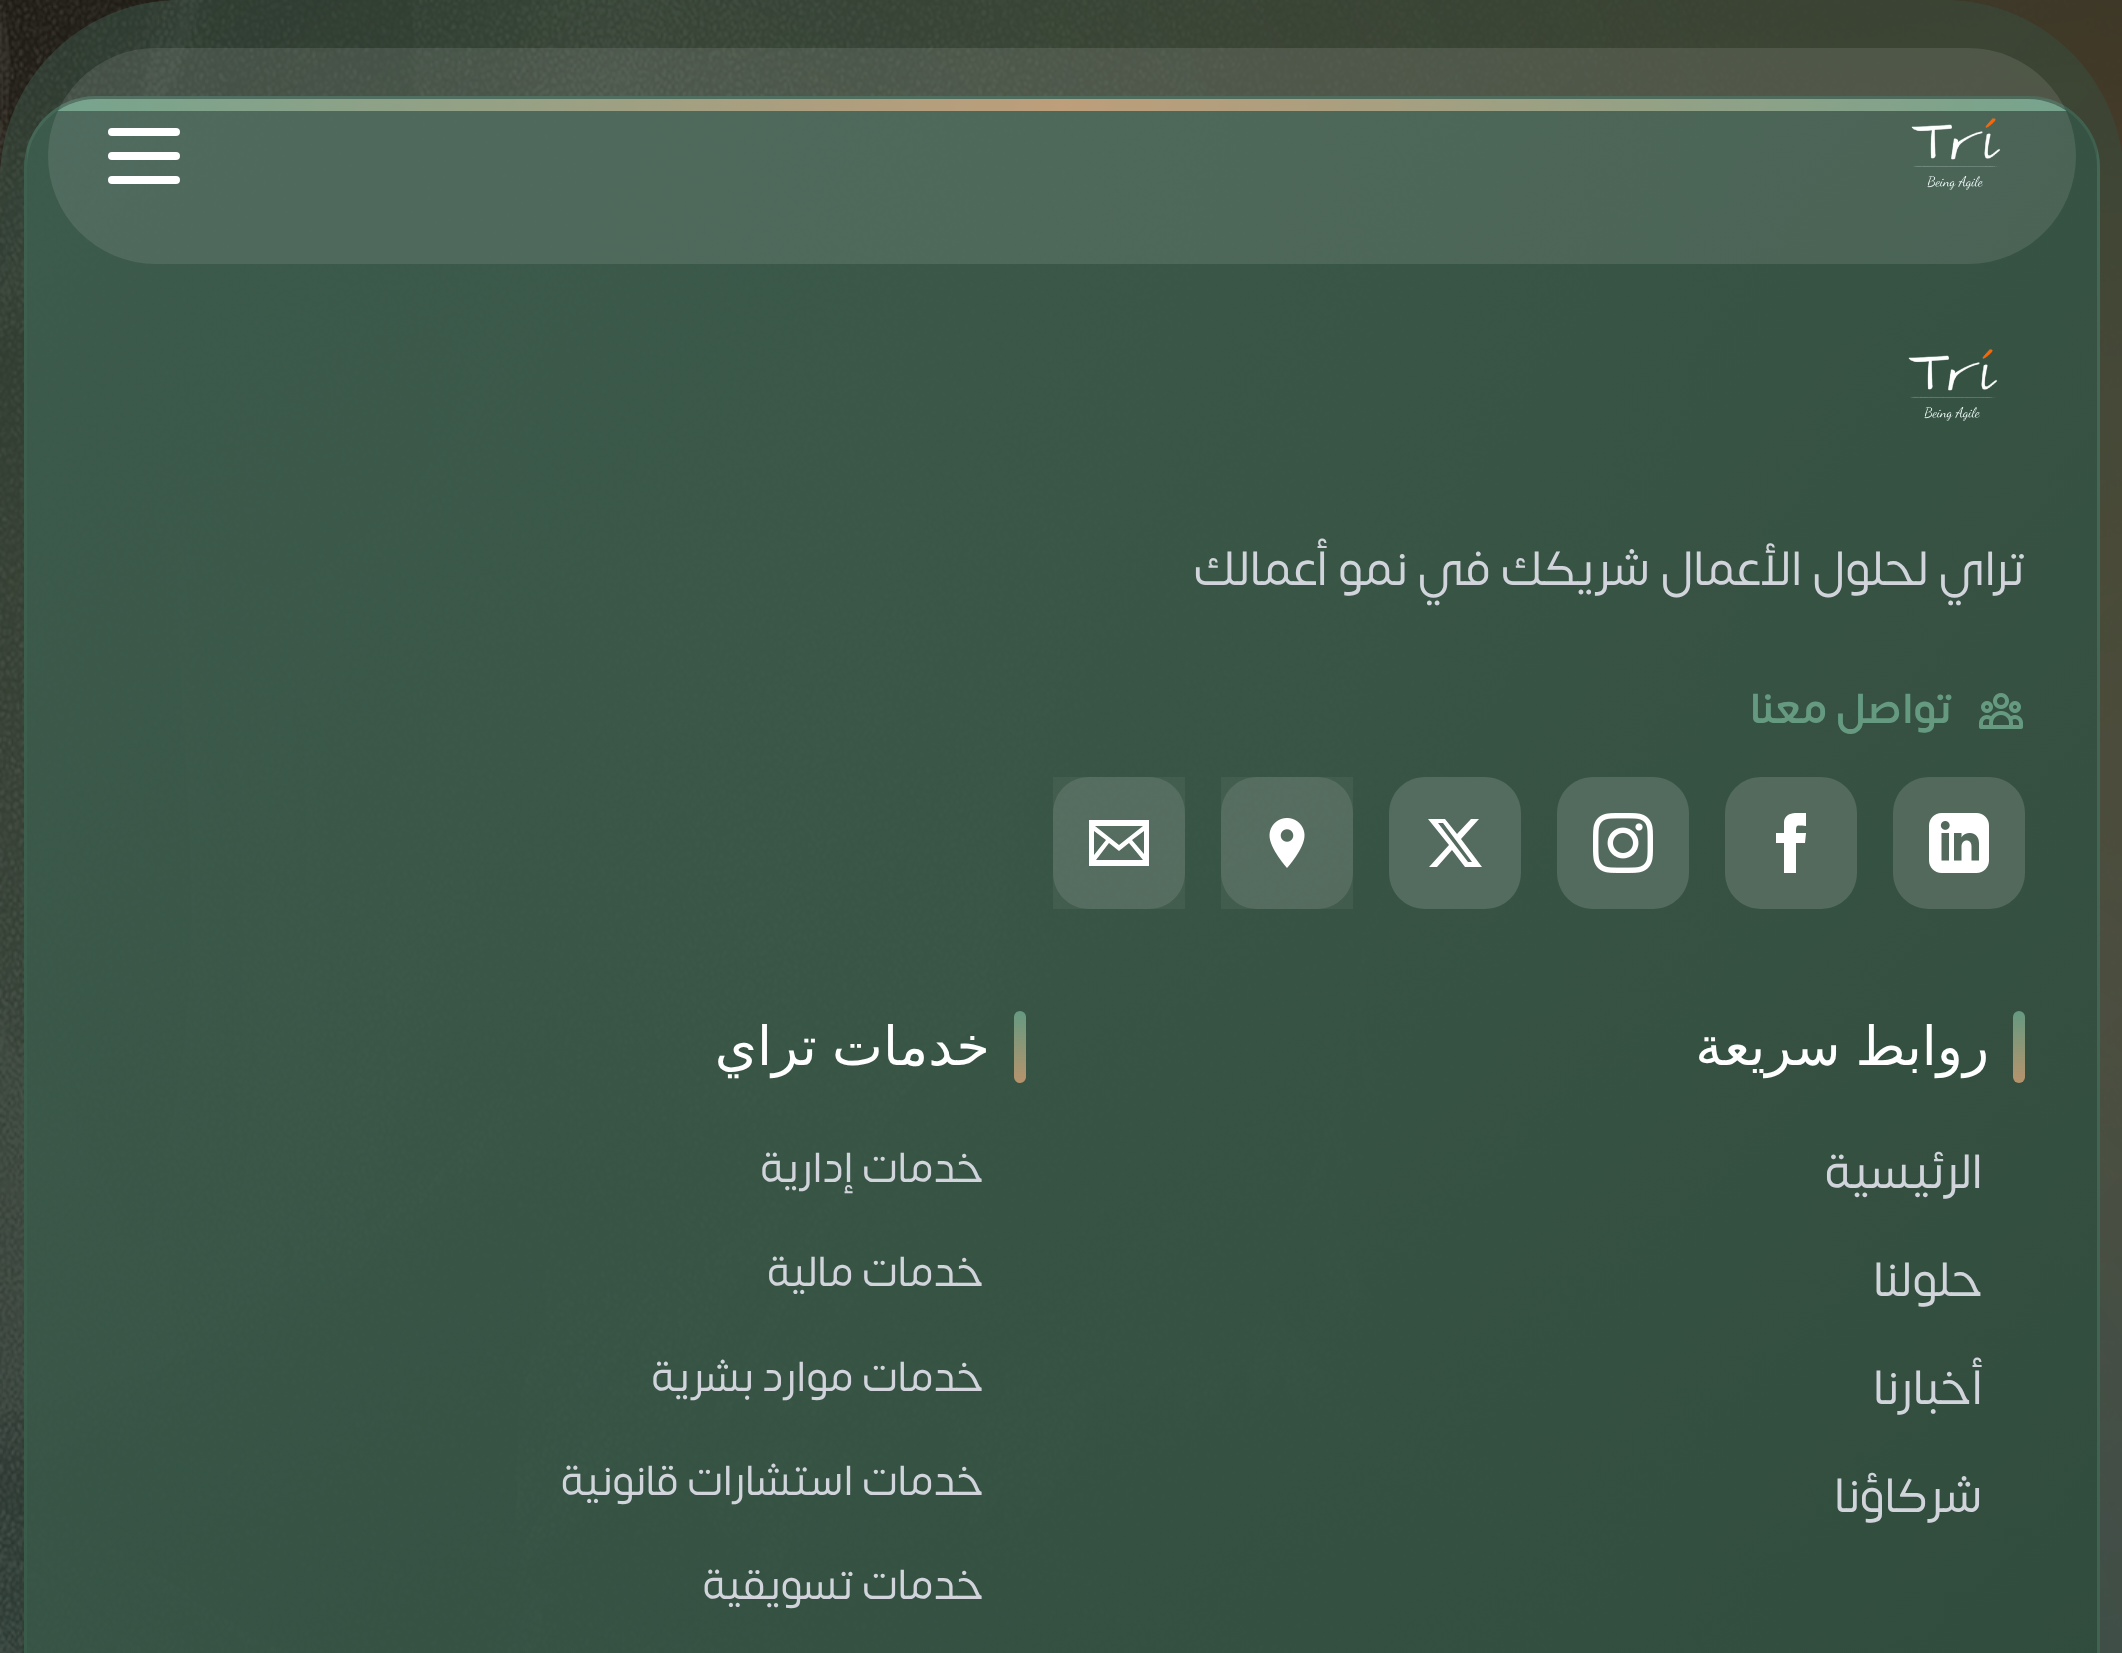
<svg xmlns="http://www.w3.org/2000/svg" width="2122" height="1653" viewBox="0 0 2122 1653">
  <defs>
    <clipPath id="clip1"><rect x="24" y="96" width="2076" height="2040" rx="72"/></clipPath>
    <linearGradient id="g1" gradientUnits="userSpaceOnUse" x1="45" y1="-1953" x2="2079" y2="117"><stop offset="0" stop-color="rgb(62,94,79)" stop-opacity="0.9"/><stop offset="1" stop-color="rgb(45,74,58)" stop-opacity="0.9"/></linearGradient>
    <linearGradient id="g2" gradientUnits="userSpaceOnUse" x1="45" y1="81" x2="2079" y2="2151"><stop offset="0" stop-color="rgb(62,94,79)" stop-opacity="0.9"/><stop offset="1" stop-color="rgb(45,74,58)" stop-opacity="0.9"/></linearGradient>
    <linearGradient id="g3" gradientUnits="userSpaceOnUse" x1="-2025" y1="81" x2="9" y2="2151"><stop offset="0" stop-color="rgb(62,94,79)" stop-opacity="0.9"/><stop offset="1" stop-color="rgb(45,74,58)" stop-opacity="0.9"/></linearGradient>
    <linearGradient id="g4" gradientUnits="userSpaceOnUse" x1="2115" y1="81" x2="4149" y2="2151"><stop offset="0" stop-color="rgb(62,94,79)" stop-opacity="0.9"/><stop offset="1" stop-color="rgb(45,74,58)" stop-opacity="0.9"/></linearGradient>
    <clipPath id="clip2"><rect x="27" y="99" width="2070" height="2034" rx="69"/></clipPath>
    <linearGradient id="g5" gradientUnits="userSpaceOnUse" x1="27" y1="105" x2="2097" y2="105"><stop offset="0" stop-color="rgb(101,154,129)"/><stop offset="0.5" stop-color="rgb(183,147,108)"/><stop offset="1" stop-color="rgb(101,154,129)"/></linearGradient>
    <clipPath id="clip3"><rect x="1761" y="813" width="60" height="60"/></clipPath>
    <linearGradient id="g6" gradientUnits="userSpaceOnUse" x1="2019" y1="1011" x2="2019" y2="1083"><stop offset="0" stop-color="rgb(101,154,129)"/><stop offset="1" stop-color="rgb(183,147,108)"/></linearGradient>
    <linearGradient id="g7" gradientUnits="userSpaceOnUse" x1="1020" y1="1011" x2="1020" y2="1083"><stop offset="0" stop-color="rgb(101,154,129)"/><stop offset="1" stop-color="rgb(183,147,108)"/></linearGradient>
  </defs>
  <rect width="100%" height="100%" fill="rgb(255,255,255)"/>
  <image x="0" y="0" width="2122" height="1653" href="pic1.png"/>
  <g clip-path="url(#clip1)">
    <rect x="75" y="96" width="1974" height="3" fill="url(#g1)"/>
    <rect x="27" y="99" width="2070" height="1554" fill="url(#g2)"/>
    <rect x="24" y="147" width="3" height="1506" fill="url(#g3)"/>
    <rect x="2097" y="147" width="3" height="1506" fill="url(#g4)"/>
  </g>
  <rect x="25.5" y="97.5" width="2073" height="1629" rx="70.5" fill="none" stroke="rgba(101,154,129,0.2)" stroke-width="3"/>
  <g clip-path="url(#clip2)">
    <path d="M39 99H2085C2091.5 99 2097 104.5 2097 111H27C27 104.5 32.5 99 39 99Z" fill="url(#g5)"/>
  </g>
  <rect x="48" y="48" width="2028" height="216" rx="108" fill="rgba(255,255,255,0.1)"/>
  <image x="1911" y="118" width="90" height="72" href="pic2.png"/>
  <path d="M112 132H176M112 156H176M112 180H176" fill="none" stroke="rgb(255,255,255)" stroke-width="8" stroke-linecap="round" stroke-linejoin="round"/>
  <image x="1908" y="349" width="90" height="72" href="pic3.png"/>
  <text x="2025" y="585" font-family="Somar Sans" font-size="48" direction="rtl" fill="rgb(209,213,219)">تراي لحلول الأعمال شريكك في نمو أعمالك</text>
  <image x="1979" y="693" width="44" height="36" href="pic4.png"/>
  <text x="1953" y="723" font-family="Somar Sans" font-size="42" font-weight="600" direction="rtl" fill="rgb(101,154,129)">تواصل معنا</text>
  <rect x="1893" y="777" width="132" height="132" rx="36" fill="rgb(63,89,74)"/>
  <path d="M1929 777H1989C2009 777 2025 793 2025 813V873C2025 893 2009 909 1989 909H1929C1909 909 1893 893 1893 873V813C1893 793 1909 777 1929 777Z" fill="rgba(255,255,255,0.1)"/>
  <image x="1929" y="813" width="60" height="60" href="pic5.png"/>
  <rect x="1725" y="777" width="132" height="132" rx="36" fill="rgb(64,90,75)"/>
  <path d="M1761 777H1821C1841 777 1857 793 1857 813V873C1857 893 1841 909 1821 909H1761C1741 909 1725 893 1725 873V813C1725 793 1741 777 1761 777Z" fill="rgba(255,255,255,0.1)"/>
  <g clip-path="url(#clip3)">
    <path d="M1784 833H1776V843H1784V873H1796V843H1805L1806 833H1796C1796 823 1797 826 1806 826V813C1798 813 1785 811 1784 822Z" fill="rgb(255,255,255)"/>
  </g>
  <rect x="1557" y="777" width="132" height="132" rx="36" fill="rgb(64,91,76)"/>
  <path d="M1593 777H1653C1673 777 1689 793 1689 813V873C1689 893 1673 909 1653 909H1593C1573 909 1557 893 1557 873V813C1557 793 1573 777 1593 777Z" fill="rgba(255,255,255,0.1)"/>
  <image x="1593" y="813" width="60" height="60" href="pic6.png"/>
  <rect x="1389" y="777" width="132" height="132" rx="36" fill="rgb(65,91,77)"/>
  <path d="M1425 777H1485C1505 777 1521 793 1521 813V873C1521 893 1505 909 1485 909H1425C1405 909 1389 893 1389 873V813C1389 793 1405 777 1425 777Z" fill="rgba(255,255,255,0.1)"/>
  <path d="M1471 819H1479L1461 839L1482 867H1465L1452 850L1437 867H1429L1449 845L1428 819H1445L1457 834ZM1468 862H1472L1443 823H1438Z" fill="rgb(255,255,255)"/>
  <rect x="1221" y="777" width="132" height="132" fill="rgba(255,255,255,0.05)"/>
  <path d="M1257 777H1317C1337 777 1353 793 1353 813V873C1353 893 1337 909 1317 909H1257C1237 909 1221 893 1221 873V813C1221 793 1237 777 1257 777Z" fill="rgba(255,255,255,0.1)"/>
  <image x="1269" y="818" width="36" height="50" href="pic7.png"/>
  <rect x="1053" y="777" width="132" height="132" fill="rgba(255,255,255,0.05)"/>
  <path d="M1089 777H1149C1169 777 1185 793 1185 813V873C1185 893 1169 909 1149 909H1089C1069 909 1053 893 1053 873V813C1053 793 1069 777 1089 777Z" fill="rgba(255,255,255,0.1)"/>
  <path d="M1089 820V866H1149V820ZM1106 840L1094 855V831ZM1095 826H1143L1119 845ZM1109 843L1119 851L1129 843L1143 860H1096ZM1132 840L1144 831V854Z" fill="rgb(255,255,255)"/>
  <rect x="2013" y="1011" width="12" height="72" rx="6" fill="url(#g6)"/>
  <text x="1989" y="1065" word-spacing="-2" font-family="DejaVu Sans" font-size="54" direction="rtl" fill="rgb(255,255,255)">روابط سريعة</text>
  <g font-family="Somar Sans" font-size="48" direction="rtl" fill="rgb(209,213,219)">
    <text x="1983" y="1188">الرئيسية</text>
    <text x="1983" y="1296">حلولنا</text>
    <text x="1983" y="1404">أخبارنا</text>
    <text x="1983" y="1512">شركاؤنا</text>
  </g>
  <rect x="1014" y="1011" width="12" height="72" rx="6" fill="url(#g7)"/>
  <text x="990" y="1065" word-spacing="-2" font-family="DejaVu Sans" font-size="54" direction="rtl" fill="rgb(255,255,255)">خدمات تراي</text>
  <g font-family="Somar Sans" font-size="42" direction="rtl" fill="rgb(209,213,219)">
    <text x="984" y="1182">خدمات إدارية</text>
    <text x="984" y="1286">خدمات مالية</text>
    <text x="984" y="1391">خدمات موارد بشرية</text>
    <text x="984" y="1495">خدمات استشارات قانونية</text>
    <text x="984" y="1599">خدمات تسويقية</text>
  </g>
</svg>
